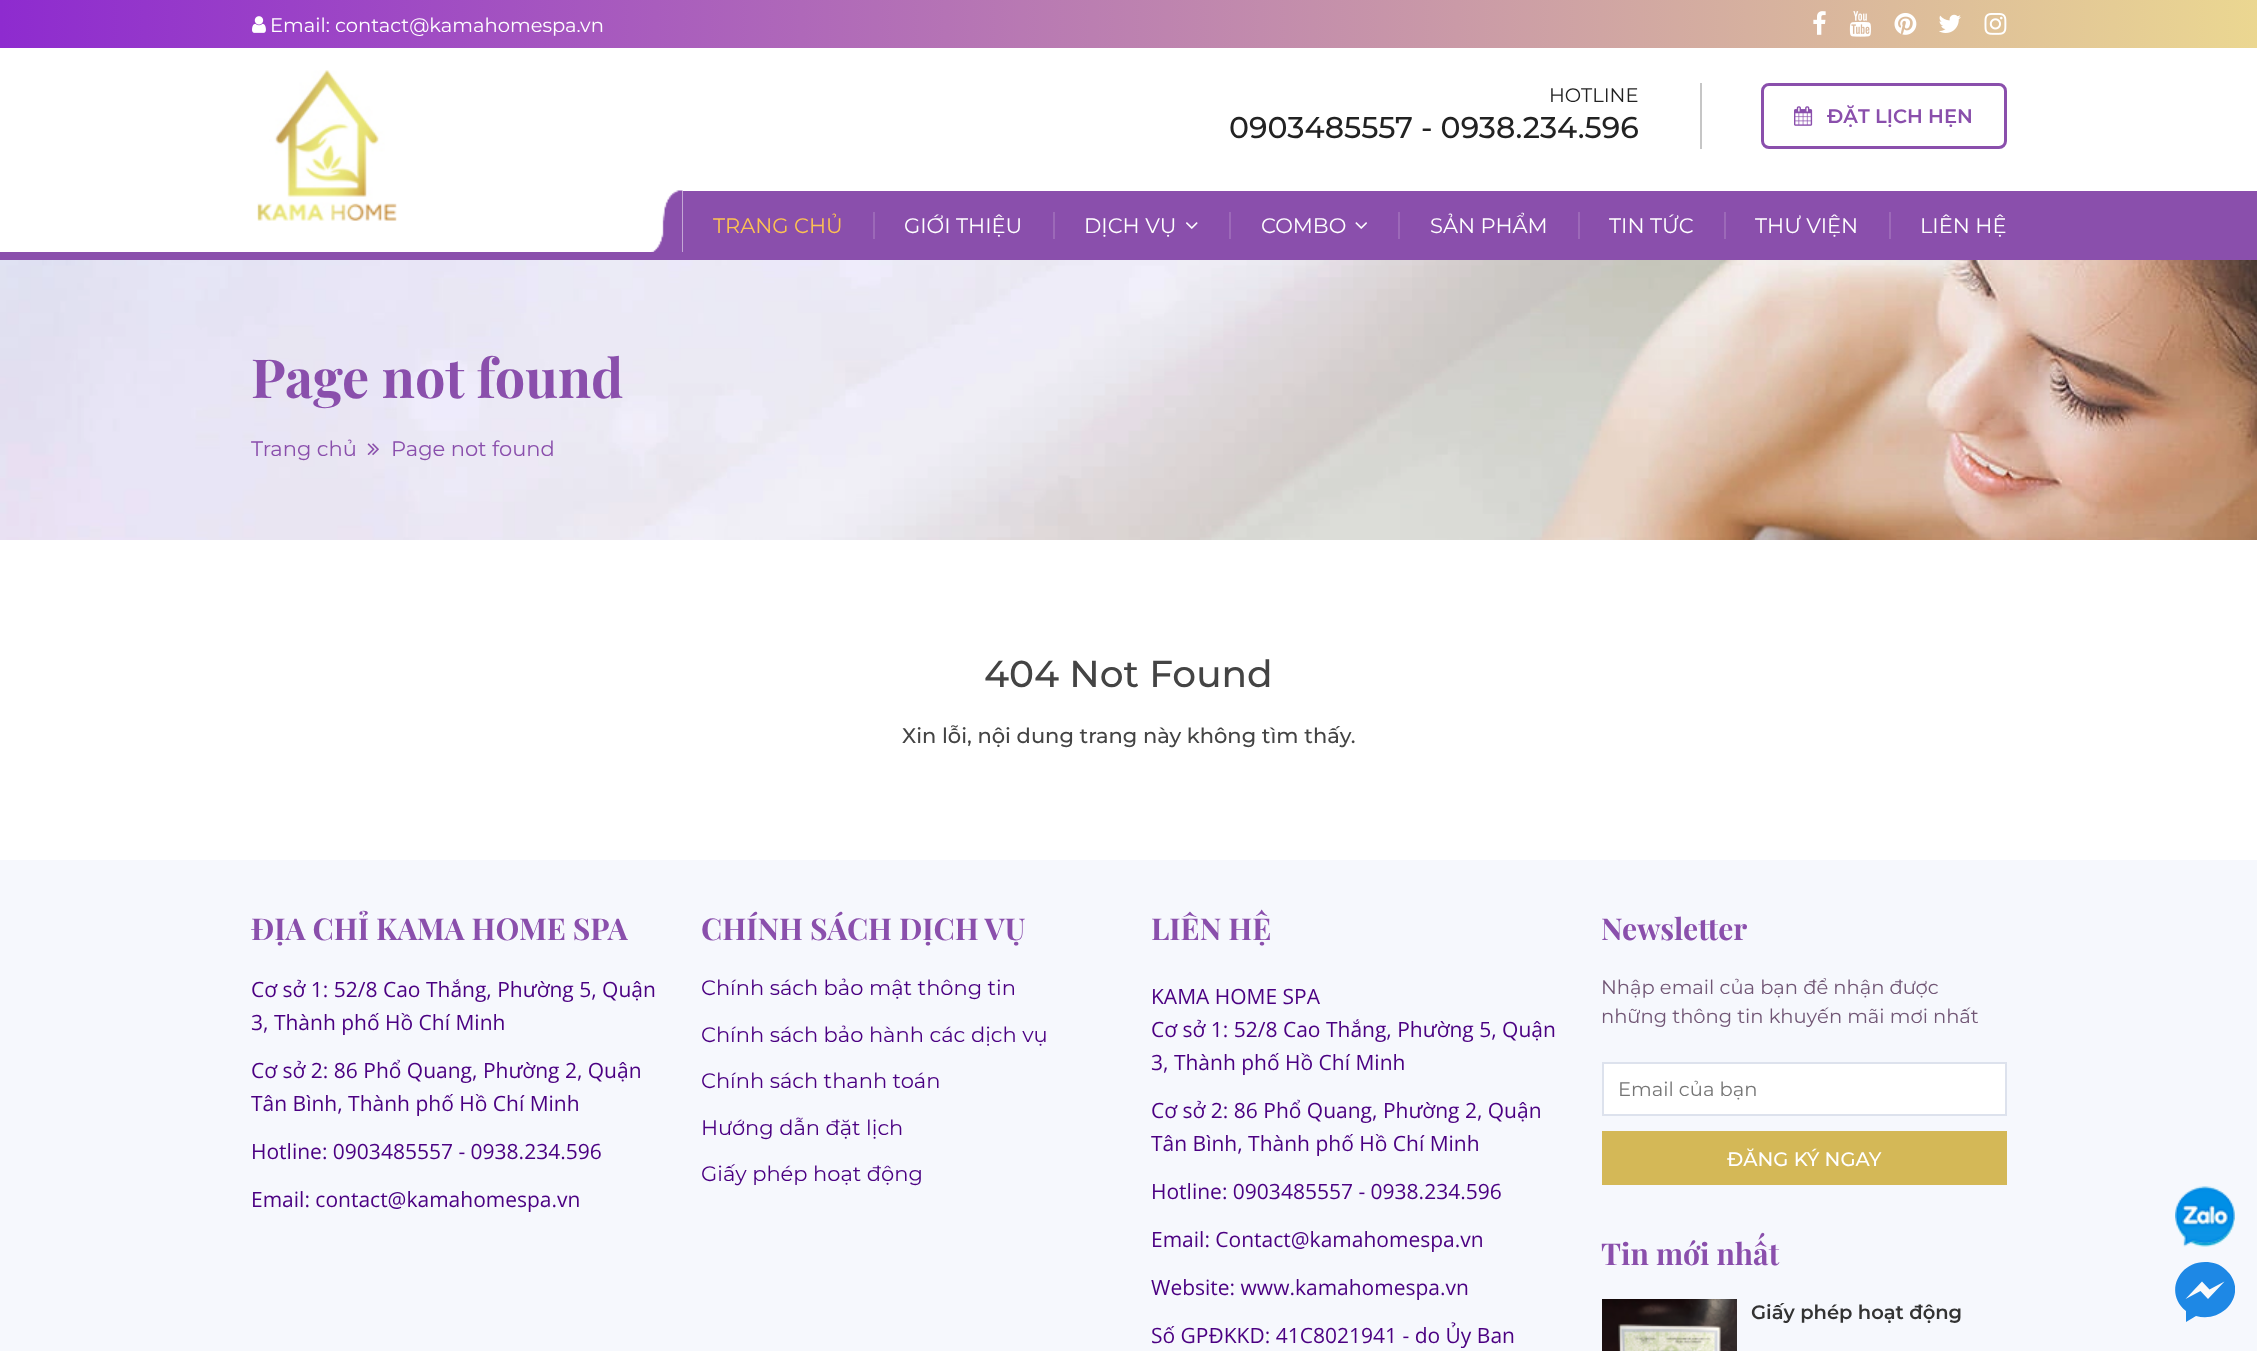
<svg xmlns="http://www.w3.org/2000/svg" width="2257" height="1351" viewBox="0 0 2257 1351">
  <defs>
    <linearGradient id="g1" gradientUnits="userSpaceOnUse" x1="0" y1="24" x2="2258" y2="24"><stop offset="0" stop-color="rgb(142,43,207)"/><stop offset="1" stop-color="rgb(235,215,145)"/></linearGradient>
    <clipPath id="clip1"><rect x="2175" y="1262" width="60" height="60"/></clipPath>
  </defs>
  <rect width="100%" height="100%" fill="rgb(255,255,255)"/>
  <rect x="0" y="252" width="2257" height="8" fill="rgb(138,79,172)"/>
  <rect x="0" y="0" width="2257" height="48" fill="url(#g1)"/>
  <image x="252" y="16" width="14" height="17" href="pic1.png"/>
  <text x="270" y="32" font-family="Montserrat" font-size="19.5" fill="rgb(255,255,255)">Email: contact@kamahomespa.vn</text>
  <image x="1813" y="11" width="13" height="24" href="pic2.png"/>
  <image x="1849" y="11" width="22" height="26" href="pic3.png"/>
  <image x="1894" y="13" width="23" height="22" href="pic4.png"/>
  <image x="1939" y="14" width="22" height="19" href="pic5.png"/>
  <image x="1984" y="13" width="23" height="22" href="pic6.png"/>
  <image x="257" y="70" width="140" height="151" href="pic7.png"/>
  <rect x="1700" y="83" width="2" height="66" fill="rgb(198,198,198)"/>
  <text x="1549" y="102" font-family="Montserrat" font-size="19.5" fill="rgb(34,34,34)">HOTLINE</text>
  <text x="1229" y="138" font-family="Montserrat" font-size="30" font-weight="500" fill="rgb(34,34,34)">0903485557 - 0938.234.596</text>
  <rect x="1762.5" y="84.5" width="243" height="63" rx="6.5" fill="none" stroke="rgb(138,79,172)" stroke-width="3"/>
  <image x="1794" y="106" width="19" height="20" href="pic8.png"/>
  <text x="1827" y="123" font-family="Montserrat" font-size="19.5" font-weight="600" fill="rgb(138,79,172)">ĐẶT LỊCH HẸN</text>
  <image x="651" y="190" width="32" height="62" href="pic9.png"/>
  <rect x="683" y="191" width="1574" height="61" fill="rgb(138,79,172)"/>
  <text x="713" y="233" font-family="Montserrat" font-size="21" fill="rgb(253,194,82)">TRANG CHỦ</text>
  <rect x="873" y="212" width="2" height="27" fill="rgb(156,105,184)"/>
  <text x="904" y="233" font-family="Montserrat" font-size="21" fill="rgb(255,255,255)">GIỚI THIỆU</text>
  <rect x="1053" y="212" width="2" height="27" fill="rgb(156,105,184)"/>
  <text x="1084" y="233" font-family="Montserrat" font-size="21" fill="rgb(255,255,255)">DỊCH VỤ</text>
  <image x="1186" y="222" width="12" height="7" href="pic10.png"/>
  <rect x="1229" y="212" width="2" height="27" fill="rgb(156,105,184)"/>
  <text x="1261" y="233" font-family="Montserrat" font-size="21" fill="rgb(255,255,255)">COMBO</text>
  <image x="1355" y="222" width="12" height="7" href="pic11.png"/>
  <rect x="1398" y="212" width="2" height="27" fill="rgb(156,105,184)"/>
  <text x="1430" y="233" font-family="Montserrat" font-size="21" fill="rgb(255,255,255)">SẢN PHẨM</text>
  <rect x="1578" y="212" width="2" height="27" fill="rgb(156,105,184)"/>
  <text x="1609" y="233" font-family="Montserrat" font-size="21" fill="rgb(255,255,255)">TIN TỨC</text>
  <rect x="1724" y="212" width="2" height="27" fill="rgb(156,105,184)"/>
  <text x="1755" y="233" font-family="Montserrat" font-size="21" fill="rgb(255,255,255)">THƯ VIỆN</text>
  <rect x="1889" y="212" width="2" height="27" fill="rgb(156,105,184)"/>
  <text x="1920" y="233" font-family="Montserrat" font-size="21" fill="rgb(255,255,255)">LIÊN HỆ</text>
  <image x="0" y="260" width="2257" height="280" href="pic12.png"/>
  <text x="251" y="398" font-family="Playfair Display" font-size="54" font-weight="bold" fill="rgb(138,79,172)">Page not found</text>
  <text x="251" y="456" font-family="Montserrat" font-size="21" fill="rgb(138,79,172)">Trang chủ</text>
  <image x="367" y="443" width="12" height="12" href="pic13.png"/>
  <text x="391" y="456" font-family="Montserrat" font-size="21" fill="rgb(138,79,172)">Page not found</text>
  <text x="984" y="687" font-family="Montserrat" font-size="37.5" font-weight="500" fill="rgb(68,68,68)">404 Not Found</text>
  <text x="902" y="743" font-family="Montserrat" font-size="21" font-weight="500" fill="rgb(68,68,68)">Xin lỗi, nội dung trang này không tìm thấy.</text>
  <rect x="0" y="860" width="2257" height="491" fill="rgb(246,248,253)"/>
  <text x="251" y="940" font-family="Playfair Display" font-size="30" font-weight="bold" fill="rgb(138,79,172)">ĐỊA CHỈ KAMA HOME SPA</text>
  <g font-family="Open Sans" font-size="21" fill="rgb(75,0,130)">
    <text>
      <tspan x="251" y="997">Cơ sở 1: 52/8 Cao Thắng, Phường 5, Quận</tspan>
      <tspan x="251" y="1030">3, Thành phố Hồ Chí Minh</tspan>
    </text>
    <text>
      <tspan x="251" y="1078">Cơ sở 2: 86 Phổ Quang, Phường 2, Quận</tspan>
      <tspan x="251" y="1111">Tân Bình, Thành phố Hồ Chí Minh</tspan>
    </text>
    <text x="251" y="1159">Hotline: 0903485557 - 0938.234.596</text>
    <text x="251" y="1207">Email: contact@kamahomespa.vn</text>
  </g>
  <text x="701" y="940" font-family="Playfair Display" font-size="30" font-weight="bold" fill="rgb(138,79,172)">CHÍNH SÁCH DỊCH VỤ</text>
  <g font-family="Montserrat" font-size="21" fill="rgb(75,0,130)">
    <text x="701" y="995">Chính sách bảo mật thông tin</text>
    <text x="701" y="1042">Chính sách bảo hành các dịch vụ</text>
    <text x="701" y="1088">Chính sách thanh toán</text>
    <text x="701" y="1135">Hướng dẫn đặt lịch</text>
    <text x="701" y="1181">Giấy phép hoạt động</text>
  </g>
  <text x="1151" y="940" font-family="Playfair Display" font-size="30" font-weight="bold" fill="rgb(138,79,172)">LIÊN HỆ</text>
  <g font-family="Open Sans" font-size="21" fill="rgb(75,0,130)">
    <text>
      <tspan x="1151" y="1004">KAMA HOME SPA</tspan>
      <tspan x="1151" y="1037">Cơ sở 1: 52/8 Cao Thắng, Phường 5, Quận</tspan>
      <tspan x="1151" y="1070">3, Thành phố Hồ Chí Minh</tspan>
    </text>
    <text>
      <tspan x="1151" y="1118">Cơ sở 2: 86 Phổ Quang, Phường 2, Quận</tspan>
      <tspan x="1151" y="1151">Tân Bình, Thành phố Hồ Chí Minh</tspan>
    </text>
    <text x="1151" y="1199">Hotline: 0903485557 - 0938.234.596</text>
    <text x="1151" y="1247">Email: Contact@kamahomespa.vn</text>
    <text x="1151" y="1295">Website: www.kamahomespa.vn</text>
    <text x="1151" y="1343">Số GPĐKKD: 41C8021941 - do Ủy Ban</text>
  </g>
  <text x="1601" y="940" font-family="Playfair Display" font-size="30" font-weight="bold" fill="rgb(138,79,172)">Newsletter</text>
  <g font-family="Montserrat" font-size="19.5" fill="rgb(113,86,117)">
    <text>
      <tspan x="1601" y="994">Nhập email của bạn để nhận được</tspan>
      <tspan x="1601" y="1023">những thông tin khuyến mãi mơi nhất</tspan>
    </text>
  </g>
  <rect x="1603" y="1063" width="403" height="52" fill="rgb(255,255,255)" stroke="rgb(221,226,237)" stroke-width="2"/>
  <text x="1618" y="1096" font-family="Montserrat" font-size="19.5" fill="rgb(117,117,117)">Email của bạn</text>
  <rect x="1602" y="1131" width="405" height="54" fill="rgb(212,184,87)"/>
  <text x="1727" y="1166" font-family="Montserrat" font-size="19.5" font-weight="500" fill="rgb(255,255,255)">ĐĂNG KÝ NGAY</text>
  <text x="1601" y="1265" font-family="Playfair Display" font-size="30" font-weight="bold" fill="rgb(138,79,172)">Tin mới nhất</text>
  <image x="1602" y="1299" width="135" height="52" href="pic14.png"/>
  <text x="1751" y="1319" font-family="Montserrat" font-size="19.5" font-weight="600" fill="rgb(51,51,51)">Giấy phép hoạt động</text>
  <image x="2175" y="1186" width="60" height="61" href="pic15.png"/>
  <g clip-path="url(#clip1)">
    <path d="M2205 1262C2178 1262 2164 1294 2186 1311V1322L2196 1316C2225 1324 2249 1291 2226 1270C2220 1264 2213 1262 2205 1262Z" fill="rgb(30,136,229)"/>
  </g>
  <path d="M2208 1299L2200.5 1291L2185.5 1299L2202 1281.5L2209.5 1289.5L2224.5 1281.5Z" fill="rgb(250,250,250)"/>
</svg>
